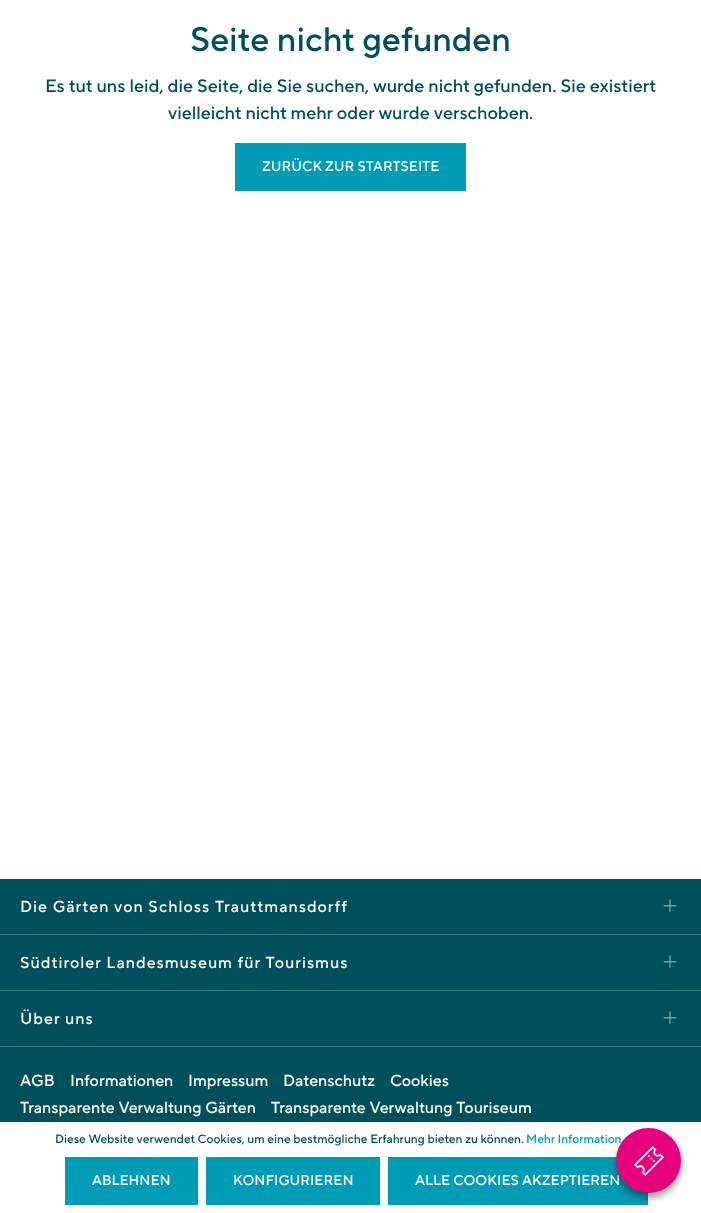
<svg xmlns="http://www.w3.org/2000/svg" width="701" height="1213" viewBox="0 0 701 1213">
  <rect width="100%" height="100%" fill="rgb(255,255,255)"/>
  <text x="190" y="51" font-family="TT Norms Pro" font-size="34" font-weight="500" fill="rgb(0,79,93)">Seite nicht gefunden</text>
  <g font-family="TT Norms Pro" font-size="18" font-weight="500" fill="rgb(0,79,93)">
    <text x="45" y="92">Es tut uns leid, die Seite, die Sie suchen, wurde nicht gefunden. Sie existiert</text>
    <text x="168" y="119">vielleicht nicht mehr oder wurde verschoben.</text>
  </g>
  <rect x="235" y="143" width="231" height="48" fill="rgb(0,155,180)"/>
  <text x="262" y="171" font-family="TT Norms Pro" font-size="14" font-weight="500" fill="rgb(255,255,255)">ZURÜCK ZUR STARTSEITE</text>
  <rect x="0" y="879" width="701" height="243" fill="rgb(0,79,93)"/>
  <rect x="0" y="934" width="701" height="1" fill="rgb(64,123,133)"/>
  <text x="20" y="912" font-family="TT Norms Pro" font-size="16" font-weight="500" letter-spacing="1" fill="rgb(255,253,242)">Die Gärten von Schloss Trauttmansdorff</text>
  <image x="663" y="899" width="14" height="14" href="pic1.png"/>
  <rect x="0" y="990" width="701" height="1" fill="rgb(64,123,133)"/>
  <text x="20" y="968" font-family="TT Norms Pro" font-size="16" font-weight="500" letter-spacing="1" fill="rgb(255,253,242)">Südtiroler Landesmuseum für Tourismus</text>
  <image x="663" y="955" width="14" height="14" href="pic1.png"/>
  <rect x="0" y="1046" width="701" height="1" fill="rgb(64,123,133)"/>
  <text x="20" y="1024" font-family="TT Norms Pro" font-size="16" font-weight="500" letter-spacing="1" fill="rgb(255,253,242)">Über uns</text>
  <image x="663" y="1011" width="14" height="14" href="pic1.png"/>
  <g font-family="TT Norms Pro" font-size="16" font-weight="500" fill="rgb(255,253,242)">
    <text x="20" y="1086">AGB</text>
    <text x="70" y="1086">Informationen</text>
    <text x="188" y="1086">Impressum</text>
    <text x="283" y="1086">Datenschutz</text>
    <text x="390" y="1086">Cookies</text>
    <text x="20" y="1113">Transparente Verwaltung Gärten</text>
    <text x="271" y="1113">Transparente Verwaltung Touriseum</text>
  </g>
  <rect x="0" y="1122" width="701" height="1" fill="rgb(234,240,241)"/>
  <text x="55" y="1143" font-family="TT Norms Pro" font-size="12" font-weight="500" fill="rgb(0,79,93)">Diese Website verwendet Cookies, um eine bestmögliche Erfahrung bieten zu können.</text>
  <text x="526" y="1143" font-family="TT Norms Pro" font-size="12" font-weight="500" fill="rgb(0,155,180)">Mehr Information</text>
  <rect x="65" y="1157" width="133" height="48" fill="rgb(0,155,180)"/>
  <text x="92" y="1185" font-family="TT Norms Pro" font-size="14" font-weight="500" fill="rgb(255,255,255)">ABLEHNEN</text>
  <rect x="206" y="1157" width="174" height="48" fill="rgb(0,155,180)"/>
  <text x="233" y="1185" font-family="TT Norms Pro" font-size="14" font-weight="500" fill="rgb(255,255,255)">KONFIGURIEREN</text>
  <rect x="388" y="1157" width="260" height="48" fill="rgb(0,155,180)"/>
  <text x="415" y="1185" font-family="TT Norms Pro" font-size="14" font-weight="500" fill="rgb(255,255,255)">ALLE COOKIES AKZEPTIEREN</text>
  <rect x="616" y="1133" width="65" height="65" rx="32.5" fill="rgba(0,0,0,0.38)" filter="blur(3.5px)"/>
  <circle cx="648.5" cy="1160.5" r="32.5" fill="rgb(230,0,126)"/>
  <image x="634" y="1146" width="30" height="30" href="pic2.png"/>
</svg>
